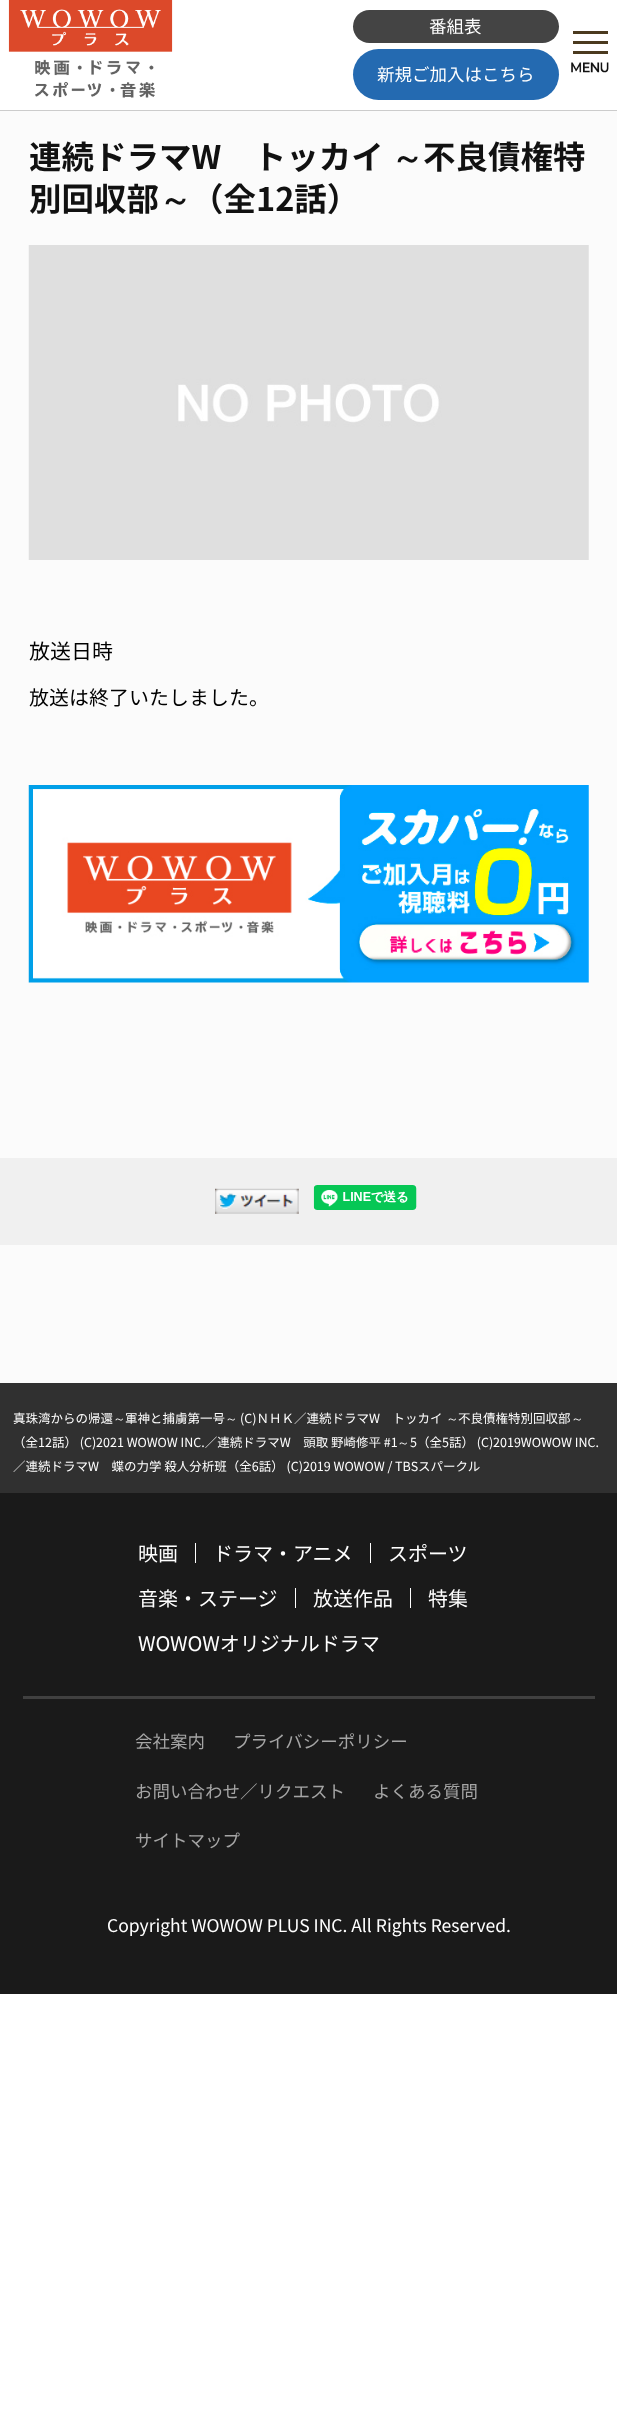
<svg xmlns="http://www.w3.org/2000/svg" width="617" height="2411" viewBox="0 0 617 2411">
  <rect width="100%" height="100%" fill="rgb(255,255,255)"/>
  <rect x="0" y="111" width="617" height="1272" fill="rgb(251,251,251)"/>
  <rect x="0" y="110" width="617" height="1" fill="rgb(204,204,204)"/>
  <image x="8" y="0" width="165" height="98" href="pic1.png"/>
  <rect x="353" y="10" width="206" height="33" rx="16.5" fill="rgb(68,68,68)"/>
  <text x="429" y="33" font-family="Noto Sans JP" font-size="17.5" fill="rgb(255,255,255)">番組表</text>
  <rect x="353" y="49" width="206" height="51" rx="25.5" fill="rgb(36,106,177)"/>
  <text x="377" y="81" font-family="Noto Sans JP" font-size="17.5" fill="rgb(255,255,255)">新規ご加入はこちら</text>
  <rect x="573" y="31" width="35" height="3" fill="rgb(75,58,31)"/>
  <rect x="573" y="41" width="35" height="3" fill="rgb(75,58,31)"/>
  <rect x="573" y="51" width="35" height="3" fill="rgb(75,58,31)"/>
  <image x="571" y="62" width="38" height="11" href="pic2.png"/>
  <text x="29" y="169" font-family="Noto Sans JP" font-size="32.5" font-weight="bold" fill="rgb(17,17,17)">連続ドラマW　トッカイ</text>
  <text x="391" y="169" font-family="WenQuanYi Zen Hei" font-size="32.5" font-weight="bold" fill="rgb(17,17,17)">～</text>
  <g font-family="Noto Sans JP" font-size="32.5" font-weight="bold" fill="rgb(17,17,17)">
    <text x="423" y="169">不良債権特</text>
    <text x="29" y="211">別回収部</text>
  </g>
  <text x="159" y="211" font-family="WenQuanYi Zen Hei" font-size="32.5" font-weight="bold" fill="rgb(17,17,17)">～</text>
  <text x="191" y="211" font-family="Noto Sans JP" font-size="32.5" font-weight="bold" fill="rgb(17,17,17)">（全12話）</text>
  <image x="28" y="245" width="561" height="315" href="pic3.png"/>
  <text x="29" y="659" font-family="Noto Sans JP" font-size="21" fill="rgb(0,0,0)">放送日時</text>
  <text x="29" y="705" font-family="Noto Sans JP" font-size="20" fill="rgb(0,0,0)">放送は終了いたしました。</text>
  <image x="28" y="785" width="561" height="198" href="pic4.png"/>
  <rect x="0" y="1158" width="617" height="87" fill="rgb(240,240,240)"/>
  <image x="215" y="1188" width="84" height="26" href="pic5.png"/>
  <image x="313" y="1185" width="104" height="25" href="pic6.png"/>
  <rect x="0" y="1383" width="617" height="110" fill="rgb(48,48,48)"/>
  <text x="13" y="1423" font-family="Noto Sans JP" font-size="12.5" fill="rgb(255,255,255)">真珠湾からの帰還</text>
  <text x="113" y="1423" font-family="WenQuanYi Zen Hei" font-size="12.5" font-weight="500" fill="rgb(255,255,255)">～</text>
  <text x="125" y="1423" font-family="Noto Sans JP" font-size="12.5" fill="rgb(255,255,255)">軍神と捕虜第一号</text>
  <text x="225" y="1423" font-family="WenQuanYi Zen Hei" font-size="12.5" font-weight="500" fill="rgb(255,255,255)">～</text>
  <text x="240" y="1423" font-family="Noto Sans JP" font-size="12.5" fill="rgb(255,255,255)">(C)ＮＨＫ／連続ドラマW　トッカイ</text>
  <text x="446" y="1423" font-family="WenQuanYi Zen Hei" font-size="12.5" font-weight="500" fill="rgb(255,255,255)">～</text>
  <text x="458" y="1423" font-family="Noto Sans JP" font-size="12.5" fill="rgb(255,255,255)">不良債権特別回収部</text>
  <text x="571" y="1423" font-family="WenQuanYi Zen Hei" font-size="12.5" font-weight="500" fill="rgb(255,255,255)">～</text>
  <text x="13" y="1447" font-family="Noto Sans JP" font-size="12.5" fill="rgb(255,255,255)">（全12話） (C)2021 WOWOW INC.／連続ドラマW　頭取 野崎修平 #1</text>
  <text x="397" y="1447" font-family="WenQuanYi Zen Hei" font-size="12.5" font-weight="500" fill="rgb(255,255,255)">～</text>
  <g font-family="Noto Sans JP" font-size="12.5" fill="rgb(255,255,255)">
    <text x="410" y="1447">5（全5話） (C)2019WOWOW INC.</text>
    <text x="13" y="1471">／連続ドラマW　蝶の力学 殺人分析班（全6話） (C)2019 WOWOW / TBSスパークル</text>
  </g>
  <rect x="0" y="1493" width="617" height="501" fill="rgb(26,26,26)"/>
  <rect x="23" y="1696" width="572" height="3" fill="rgb(64,64,64)"/>
  <text x="138" y="1561" font-family="Noto Sans JP" font-size="20" fill="rgb(255,255,255)">映画</text>
  <rect x="195" y="1543" width="1" height="20" fill="rgb(255,255,255)"/>
  <text x="213" y="1561" font-family="Noto Sans JP" font-size="20" fill="rgb(255,255,255)">ドラマ・アニメ</text>
  <rect x="370" y="1543" width="1" height="20" fill="rgb(255,255,255)"/>
  <g font-family="Noto Sans JP" font-size="20" fill="rgb(255,255,255)">
    <text x="388" y="1561">スポーツ</text>
    <text x="138" y="1606">音楽・ステージ</text>
  </g>
  <rect x="295" y="1588" width="1" height="20" fill="rgb(255,255,255)"/>
  <text x="313" y="1606" font-family="Noto Sans JP" font-size="20" fill="rgb(255,255,255)">放送作品</text>
  <rect x="410" y="1588" width="1" height="20" fill="rgb(255,255,255)"/>
  <g font-family="Noto Sans JP" font-size="20" fill="rgb(255,255,255)">
    <text x="428" y="1606">特集</text>
    <text x="138" y="1651">WOWOWオリジナルドラマ</text>
  </g>
  <g font-family="Noto Sans JP" font-size="17.5" fill="rgb(165,165,165)">
    <text x="135" y="1748">会社案内</text>
    <text x="233" y="1748">プライバシーポリシー</text>
    <text x="135" y="1798">お問い合わせ／リクエスト</text>
    <text x="373" y="1798">よくある質問</text>
    <text x="135" y="1847">サイトマップ</text>
  </g>
  <text x="107" y="1932" font-family="Noto Sans JP" font-size="17.5" fill="rgb(255,255,255)">Copyright WOWOW PLUS INC. All Rights Reserved.</text>
</svg>
